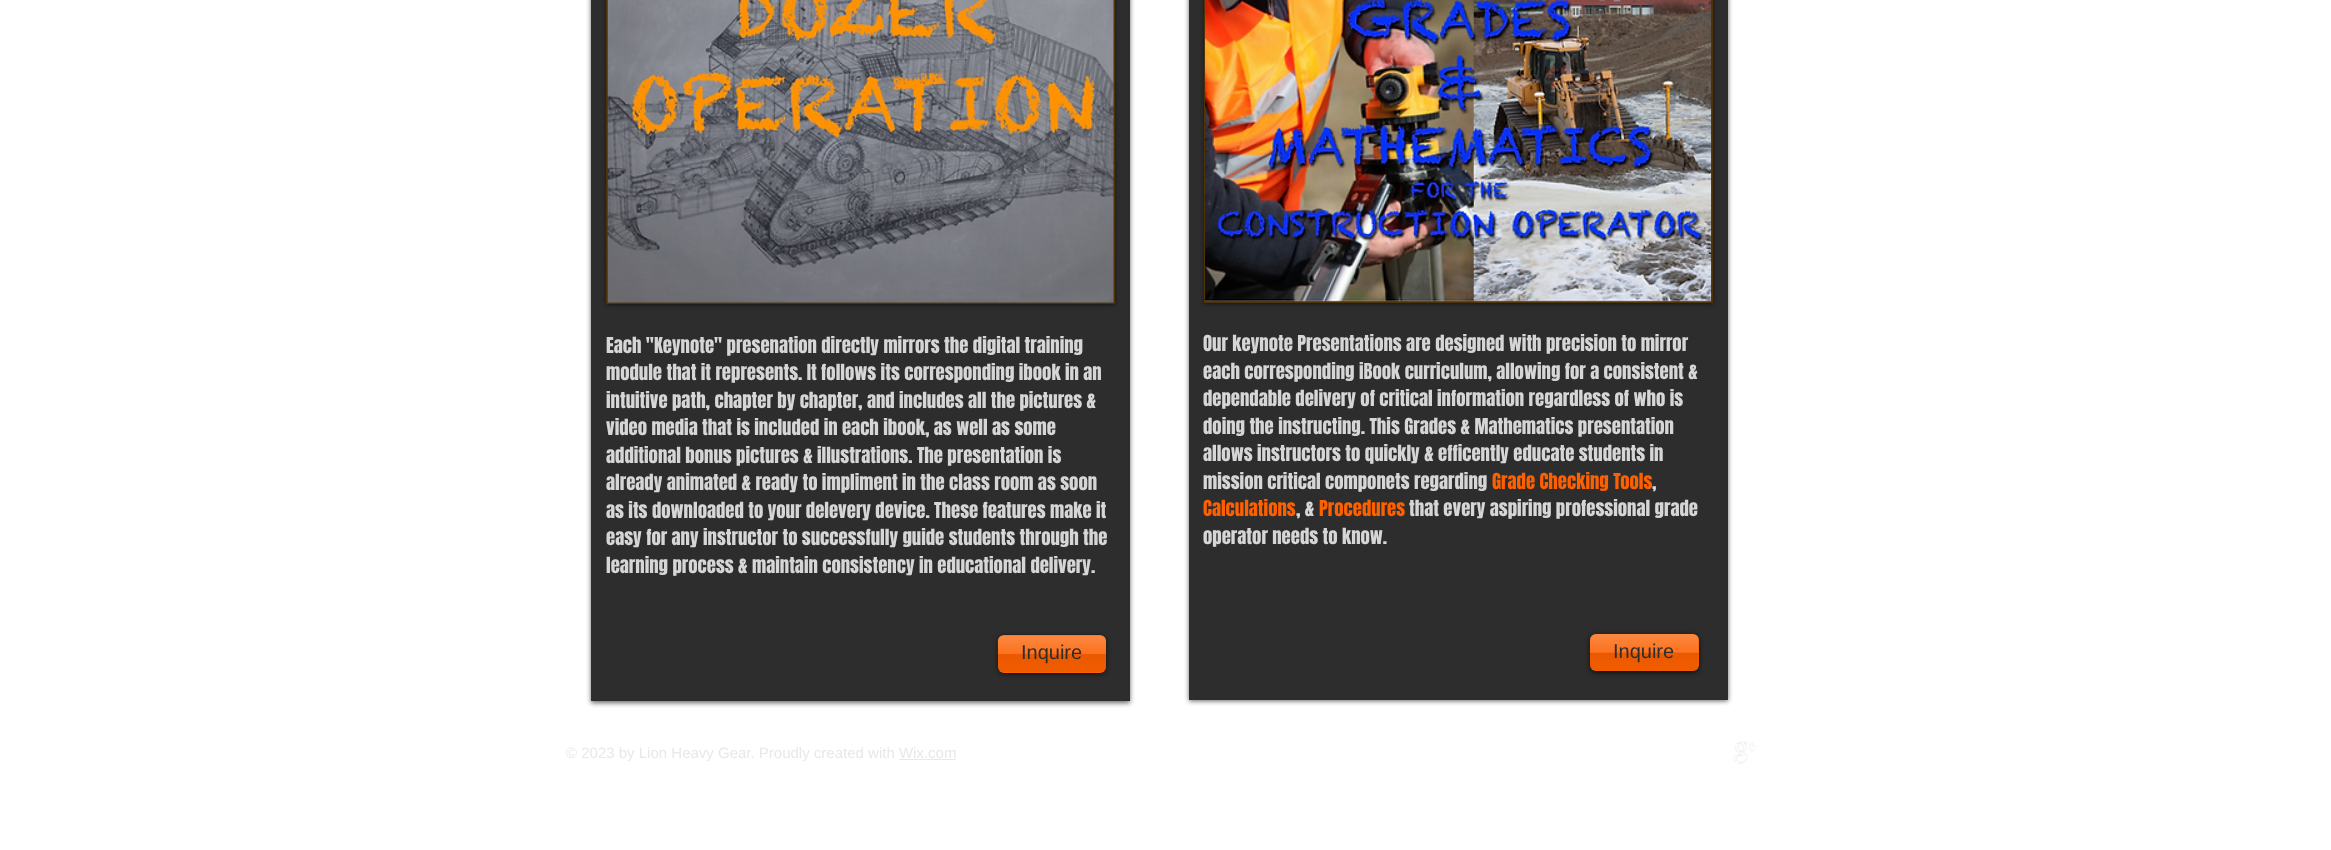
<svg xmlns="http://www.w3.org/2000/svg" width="2331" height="850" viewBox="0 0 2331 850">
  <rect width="100%" height="100%" fill="rgb(255,255,255)"/>
  <rect x="591" y="-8" width="539" height="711" fill="rgba(0,0,0,0.6)" filter="blur(2.5px)"/>
  <rect x="591" y="0" width="539" height="701" fill="rgb(45,45,45)"/>
  <rect x="606" y="-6" width="509" height="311" fill="rgba(0,0,0,0.5)" filter="blur(2px)"/>
  <rect x="606" y="0" width="509" height="304" fill="rgb(79,51,6)"/>
  <image x="607" y="0" width="507" height="303" href="pic1.png"/>
  <g font-family="Anton" font-size="18.75" fill="rgb(214,214,214)">
    <text>
      <tspan x="606" y="353">Each "Keynote" presenation directly mirrors the digital training</tspan>
      <tspan x="606" y="380">module that it represents. It follows its corresponding ibook in an</tspan>
      <tspan x="606" y="408">intuitive path, chapter by chapter, and includes all the pictures &amp;</tspan>
      <tspan x="606" y="435">video media that is included in each ibook, as well as some</tspan>
      <tspan x="606" y="463">additional bonus pictures &amp; illustrations. The presentation is</tspan>
      <tspan x="606" y="490">already animated &amp; ready to impliment in the class room as soon</tspan>
      <tspan x="606" y="518">as its downloaded to your delevery device. These features make it</tspan>
      <tspan x="606" y="545">easy for any instructor to successfully guide students through the</tspan>
      <tspan x="606" y="573">learning process &amp; maintain consistency in educational delivery.</tspan>
    </text>
  </g>
  <rect x="998" y="636" width="108" height="38" rx="6" fill="rgba(0,0,0,0.6)" filter="blur(2.5px)"/>
  <rect x="998" y="635" width="108" height="38" rx="6" fill="rgb(252,96,0)"/>
  <image x="997" y="635" width="109" height="37" href="pic2.png"/>
  <text x="1021" y="659" font-family="Liberation Sans" font-size="20" fill="rgb(45,45,45)">Inquire</text>
  <rect x="1189" y="-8" width="539" height="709" fill="rgba(0,0,0,0.6)" filter="blur(2.5px)"/>
  <rect x="1189" y="0" width="539" height="700" fill="rgb(45,45,45)"/>
  <rect x="1204" y="-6" width="509" height="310" fill="rgba(0,0,0,0.5)" filter="blur(2px)"/>
  <rect x="1204" y="0" width="509" height="303" fill="rgb(79,51,6)"/>
  <image x="1205" y="0" width="507" height="302" href="pic3.png"/>
  <g font-family="Anton" font-size="18.75" fill="rgb(214,214,214)">
    <text>
      <tspan x="1203" y="351">Our keynote Presentations are designed with precision to mirror</tspan>
      <tspan x="1203" y="379">each corresponding iBook curriculum, allowing for a consistent &amp;</tspan>
      <tspan x="1203" y="406">dependable delivery of critical information regardless of who is</tspan>
      <tspan x="1203" y="434">doing the instructing. This Grades &amp; Mathematics presentation</tspan>
      <tspan x="1203" y="461">allows instructors to quickly &amp; efficently educate students in</tspan>
      <tspan x="1203" y="489">mission critical componets regarding</tspan>
    </text>
  </g>
  <text x="1492" y="489" font-family="Anton" font-size="18.75" fill="rgb(252,96,0)">Grade Checking Tools</text>
  <text x="1652" y="489" font-family="Anton" font-size="18.75" fill="rgb(214,214,214)">,</text>
  <text x="1203" y="516" font-family="Anton" font-size="18.75" fill="rgb(252,96,0)">Calculations</text>
  <text x="1296" y="516" font-family="Anton" font-size="18.75" fill="rgb(214,214,214)">, &amp;</text>
  <text x="1319" y="516" font-family="Anton" font-size="18.75" fill="rgb(252,96,0)">Procedures</text>
  <g font-family="Anton" font-size="18.75" fill="rgb(214,214,214)">
    <text x="1409" y="516">that every aspiring professional grade</text>
    <text x="1203" y="544">operator needs to know.</text>
  </g>
  <rect x="1590" y="635" width="109" height="38" rx="6" fill="rgba(0,0,0,0.6)" filter="blur(2.5px)"/>
  <rect x="1590" y="634" width="109" height="37" rx="6" fill="rgb(252,96,0)"/>
  <image x="1590" y="634" width="109" height="37" href="pic4.png"/>
  <text x="1613" y="658" font-family="Liberation Sans" font-size="20" fill="rgb(45,45,45)">Inquire</text>
  <text x="566" y="758" font-family="Liberation Sans" font-size="15" fill="rgb(232,232,232)">© 2023 by Lion Heavy Gear. Proudly created with Wix.com</text>
  <rect x="899" y="759" width="57" height="1" fill="rgb(232,232,232)"/>
  <image x="1733" y="741" width="23" height="23" href="pic5.png"/>
</svg>
